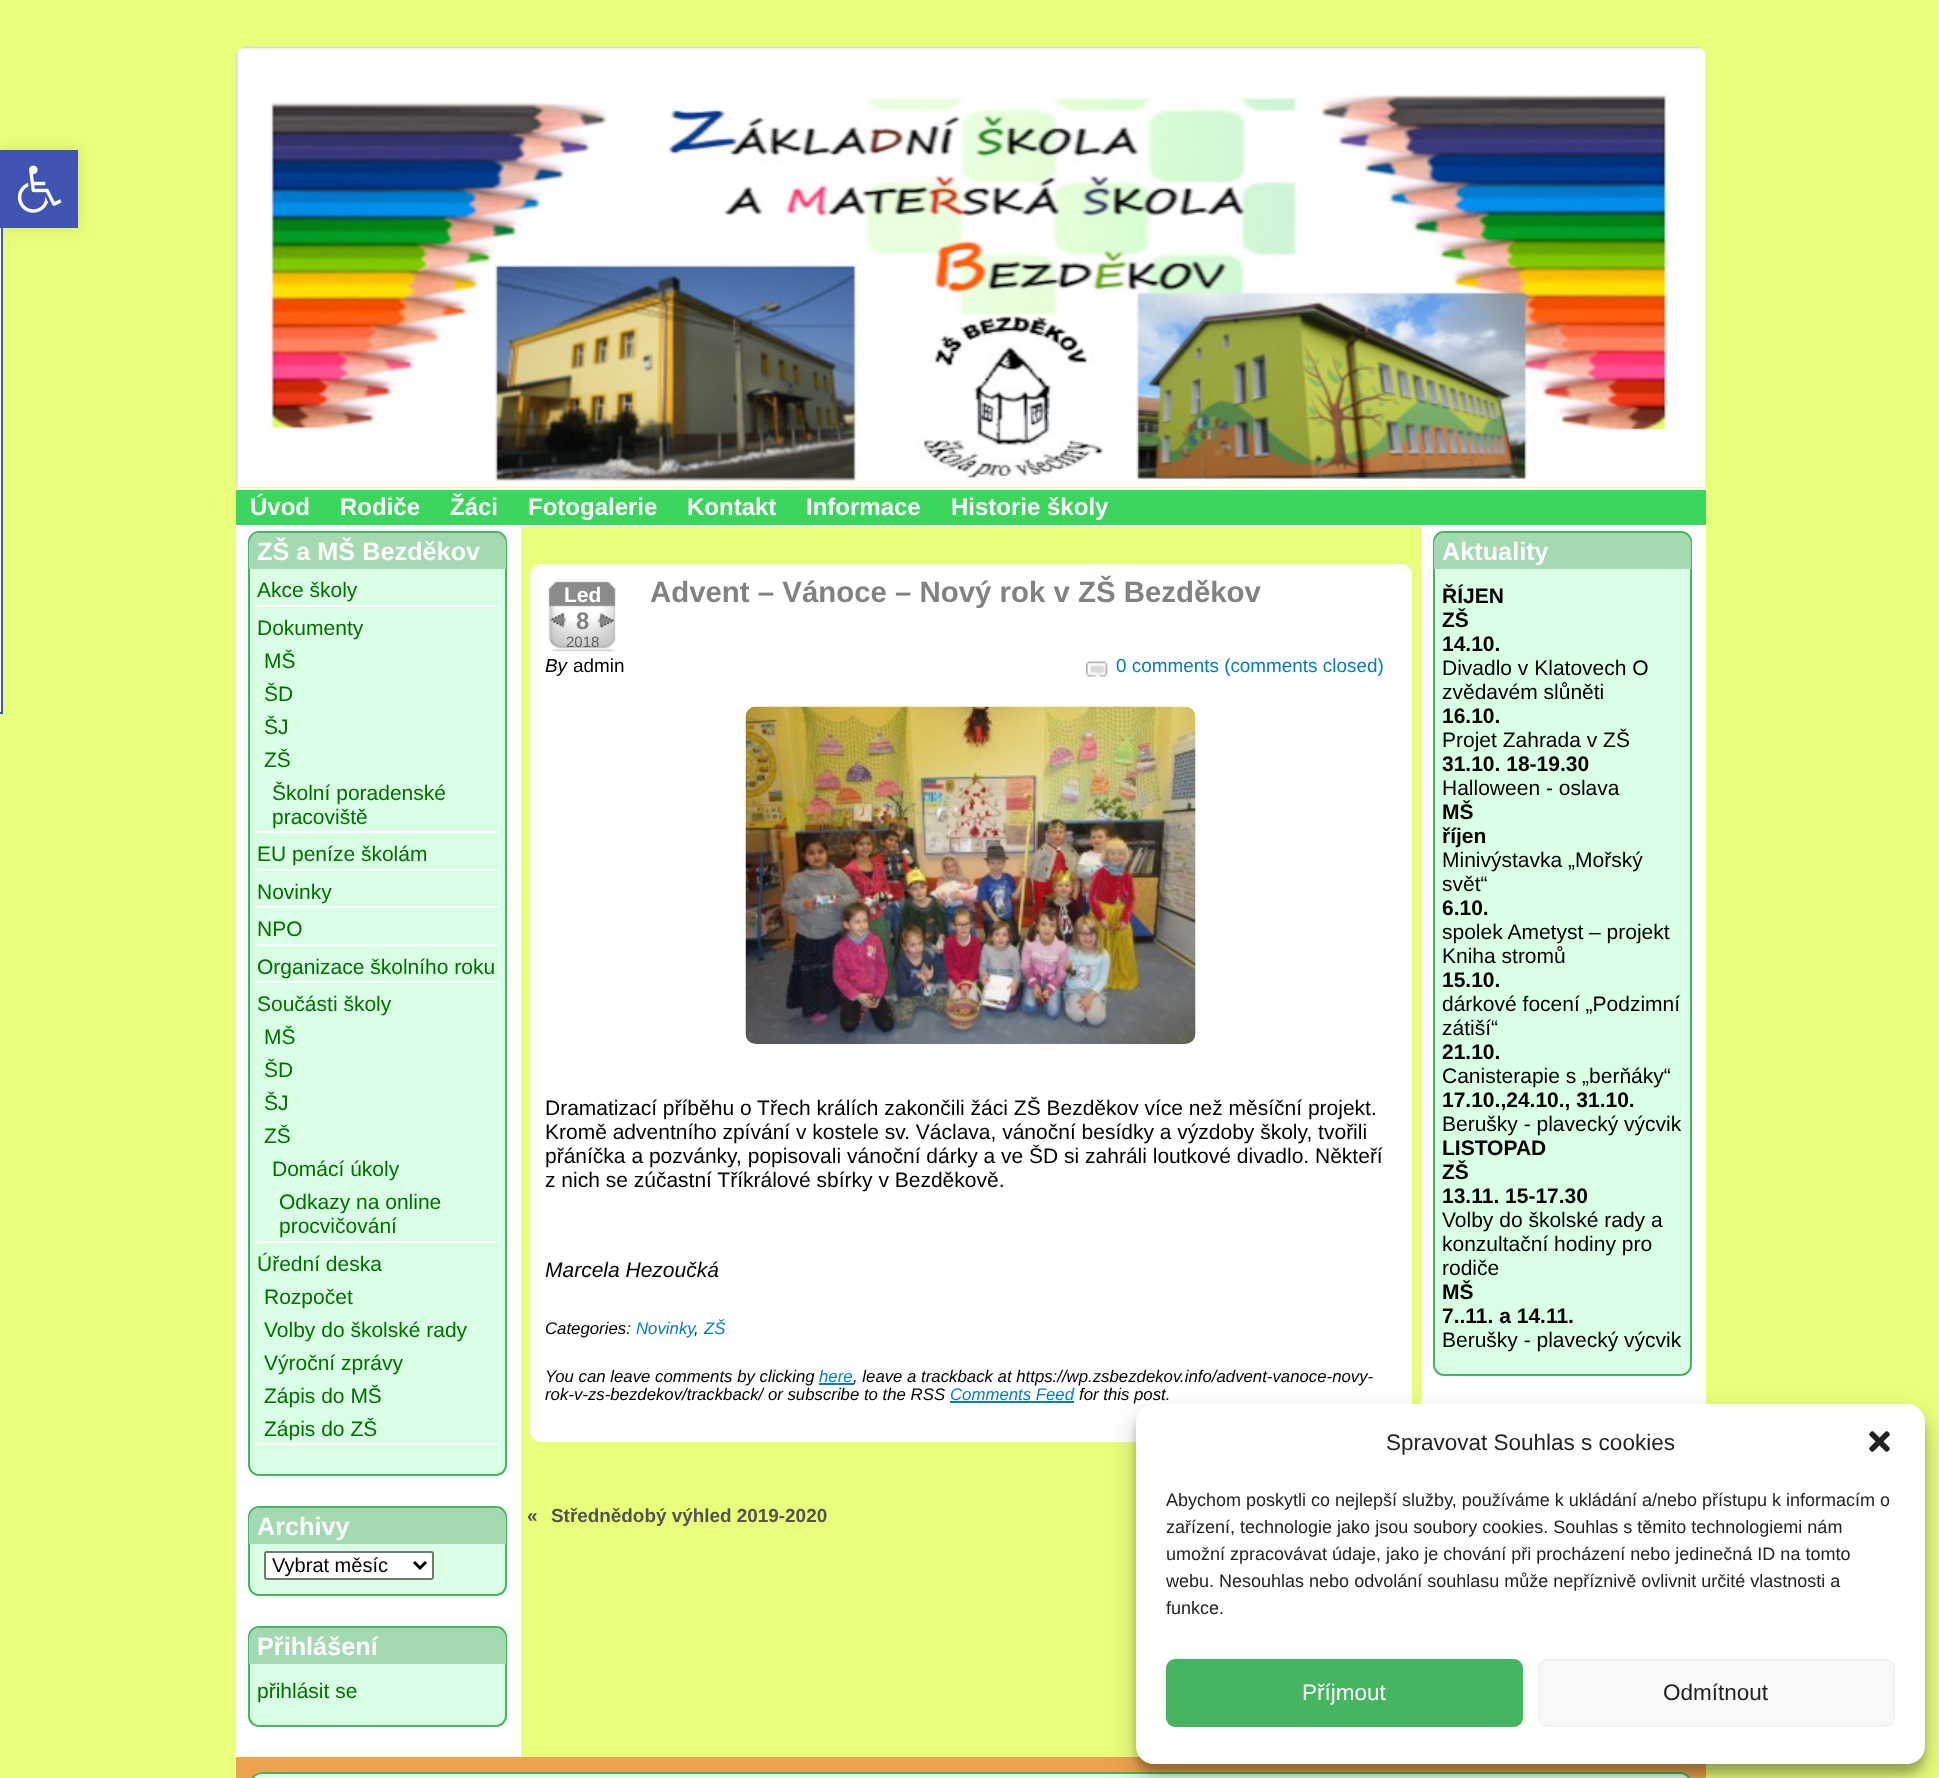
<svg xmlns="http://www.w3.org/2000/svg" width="1939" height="1778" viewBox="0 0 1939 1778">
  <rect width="100%" height="100%" fill="rgb(233,254,123)"/>
  <rect x="0" y="228" width="1" height="486" fill="rgb(255,255,255)"/>
  <rect x="-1" y="151" width="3" height="562" fill="none" stroke="rgb(64,84,178)" stroke-width="2"/>
  <rect x="0" y="150" width="78" height="78" fill="rgba(0,0,0,0.1)" filter="blur(7.5px)"/>
  <rect x="0" y="150" width="78" height="78" fill="rgb(64,84,178)"/>
  <image x="17" y="165" width="45" height="48" href="pic1.png"/>
  <image x="235" y="46" width="1471" height="442" href="pic2.png"/>
  <rect x="236" y="490" width="1470" height="35" fill="rgb(60,213,94)"/>
  <rect x="236" y="488" width="1470" height="2" fill="rgb(255,255,255)"/>
  <rect x="236" y="525" width="1470" height="2" fill="rgb(255,255,255)"/>
  <g font-family="Liberation Sans" font-size="24" font-weight="bold" fill="rgb(255,255,255)">
    <text x="250" y="515">Úvod</text>
    <text x="340" y="515">Rodiče</text>
    <text x="450" y="515">Žáci</text>
    <text x="528" y="515">Fotogalerie</text>
    <text x="687" y="515">Kontakt</text>
    <text x="806" y="515">Informace</text>
    <text x="951" y="515">Historie školy</text>
  </g>
  <rect x="236" y="527" width="285" height="1230" fill="rgb(255,255,255)"/>
  <rect x="1421" y="527" width="285" height="877" fill="rgb(255,255,255)"/>
  <rect x="249" y="532" width="257" height="943" rx="10" fill="rgb(217,255,228)" stroke="rgb(70,181,98)" stroke-width="2"/>
  <path d="M260 533H495C501 533 506 538 506 544V569H249V544C249 538 254 533 260 533Z" fill="rgb(163,218,177)"/>
  <text x="257" y="560" font-family="Liberation Sans" font-size="25.25" font-weight="bold" fill="rgb(255,255,255)">ZŠ a MŠ Bezděkov</text>
  <rect x="257" y="605" width="241" height="2" fill="rgb(255,255,255)"/>
  <text x="257" y="597" font-family="Liberation Sans" font-size="21" fill="rgb(0,111,0)">Akce školy</text>
  <rect x="257" y="831" width="241" height="2" fill="rgb(255,255,255)"/>
  <g font-family="Liberation Sans" font-size="21" fill="rgb(0,111,0)">
    <text x="257" y="635">Dokumenty</text>
    <text>
      <tspan x="264" y="668">MŠ</tspan>
      <tspan x="264" y="701">ŠD</tspan>
      <tspan x="264" y="734">ŠJ</tspan>
      <tspan x="264" y="767">ZŠ</tspan>
    </text>
    <text>
      <tspan x="272" y="800">Školní poradenské</tspan>
      <tspan x="272" y="824">pracoviště</tspan>
    </text>
  </g>
  <rect x="257" y="869" width="241" height="2" fill="rgb(255,255,255)"/>
  <text x="257" y="861" font-family="Liberation Sans" font-size="21" fill="rgb(0,111,0)">EU peníze školám</text>
  <rect x="257" y="906" width="241" height="2" fill="rgb(255,255,255)"/>
  <text x="257" y="899" font-family="Liberation Sans" font-size="21" fill="rgb(0,111,0)">Novinky</text>
  <rect x="257" y="944" width="241" height="2" fill="rgb(255,255,255)"/>
  <text x="257" y="936" font-family="Liberation Sans" font-size="21" fill="rgb(0,111,0)">NPO</text>
  <rect x="257" y="981" width="241" height="2" fill="rgb(255,255,255)"/>
  <text x="257" y="974" font-family="Liberation Sans" font-size="21" fill="rgb(0,111,0)">Organizace školního roku</text>
  <rect x="257" y="1241" width="241" height="2" fill="rgb(255,255,255)"/>
  <g font-family="Liberation Sans" font-size="21" fill="rgb(0,111,0)">
    <text x="257" y="1011">Součásti školy</text>
    <text>
      <tspan x="264" y="1044">MŠ</tspan>
      <tspan x="264" y="1077">ŠD</tspan>
      <tspan x="264" y="1110">ŠJ</tspan>
      <tspan x="264" y="1143">ZŠ</tspan>
    </text>
    <text x="272" y="1176">Domácí úkoly</text>
    <text>
      <tspan x="279" y="1209">Odkazy na online</tspan>
      <tspan x="279" y="1233">procvičování</tspan>
    </text>
  </g>
  <rect x="257" y="1443" width="241" height="2" fill="rgb(255,255,255)"/>
  <g font-family="Liberation Sans" font-size="21" fill="rgb(0,111,0)">
    <text x="257" y="1271">Úřední deska</text>
    <text>
      <tspan x="264" y="1304">Rozpočet</tspan>
      <tspan x="264" y="1337">Volby do školské rady</tspan>
      <tspan x="264" y="1370">Výroční zprávy</tspan>
      <tspan x="264" y="1403">Zápis do MŠ</tspan>
      <tspan x="264" y="1436">Zápis do ZŠ</tspan>
    </text>
  </g>
  <rect x="249" y="1507" width="257" height="88" rx="10" fill="rgb(217,255,228)" stroke="rgb(70,181,98)" stroke-width="2"/>
  <path d="M260 1508H495C501 1508 506 1513 506 1519V1544H249V1519C249 1513 254 1508 260 1508Z" fill="rgb(163,218,177)"/>
  <text x="257" y="1535" font-family="Liberation Sans" font-size="25.25" font-weight="bold" fill="rgb(255,255,255)">Archivy</text>
  <rect x="265" y="1552" width="168" height="27" rx="2" fill="rgb(255,255,255)" stroke="rgb(118,118,118)" stroke-width="2"/>
  <path d="M414 1562L420 1568L426 1562" fill="none" stroke="rgb(0,0,0)" stroke-width="3"/>
  <text x="272" y="1572" font-family="Liberation Sans" font-size="20" fill="rgb(0,0,0)">Vybrat měsíc</text>
  <rect x="249" y="1627" width="257" height="99" rx="10" fill="rgb(217,255,228)" stroke="rgb(70,181,98)" stroke-width="2"/>
  <path d="M260 1628H495C501 1628 506 1633 506 1639V1664H249V1639C249 1633 254 1628 260 1628Z" fill="rgb(163,218,177)"/>
  <text x="257" y="1655" font-family="Liberation Sans" font-size="25.25" font-weight="bold" fill="rgb(255,255,255)">Přihlášení</text>
  <text x="257" y="1698" font-family="Liberation Sans" font-size="21" fill="rgb(0,111,0)">přihlásit se</text>
  <rect x="531" y="565" width="880" height="876" rx="10" fill="rgb(255,255,255)" stroke="rgb(255,255,255)" stroke-width="2"/>
  <image x="548" y="581" width="68" height="71" href="pic3.png"/>
  <text x="564" y="602" font-family="Liberation Sans" font-size="21" font-weight="bold" fill="rgb(255,255,255)">Led</text>
  <text x="576" y="629" font-family="Liberation Sans" font-size="24" font-weight="bold" fill="rgb(130,130,130)">8</text>
  <text x="566" y="647" font-family="Liberation Sans" font-size="15" fill="rgb(97,97,97)">2018</text>
  <text x="650" y="602" font-family="Liberation Sans" font-size="29.4" font-weight="bold" fill="rgb(130,130,130)">Advent – Vánoce – Nový rok v ZŠ Bezděkov</text>
  <text x="545" y="672" font-family="Liberation Sans" font-size="18.9" font-style="italic" fill="rgb(0,0,0)">By</text>
  <text x="573" y="672" font-family="Liberation Sans" font-size="18.9" fill="rgb(0,0,0)">admin</text>
  <image x="1086" y="661" width="22" height="16" href="pic4.png"/>
  <text x="1116" y="672" font-family="Liberation Sans" font-size="18.9" fill="rgb(4,124,183)">0 comments (comments closed)</text>
  <image x="745" y="706" width="451" height="338" href="pic5.png"/>
  <g font-family="Liberation Sans" font-size="21" fill="rgb(0,0,0)">
    <text>
      <tspan x="545" y="1115">Dramatizací příběhu o Třech králích zakončili žáci ZŠ Bezděkov více než měsíční projekt.</tspan>
      <tspan x="545" y="1139">Kromě adventního zpívání v kostele sv. Václava, vánoční besídky a výzdoby školy, tvořili</tspan>
      <tspan x="545" y="1163">přáníčka a pozvánky, popisovali vánoční dárky a ve ŠD si zahráli loutkové divadlo. Někteří</tspan>
      <tspan x="545" y="1187">z nich se zúčastní Tříkrálové sbírky v Bezděkově.</tspan>
    </text>
  </g>
  <text x="545" y="1277" font-family="Liberation Sans" font-size="21" font-style="italic" fill="rgb(0,0,0)">Marcela Hezoučká</text>
  <text x="545" y="1334" font-family="Liberation Sans" font-size="16.8" font-style="italic" fill="rgb(0,0,0)">Categories:</text>
  <g font-family="Liberation Sans" font-size="16.8" font-style="italic" fill="rgb(4,124,183)">
    <text x="636" y="1334">Novinky</text>
    <text x="704" y="1334">ZŠ</text>
  </g>
  <g font-family="Liberation Sans" font-size="16.8" font-style="italic" fill="rgb(0,0,0)">
    <text x="694" y="1334">,</text>
    <text x="545" y="1382">You can leave comments by clicking</text>
  </g>
  <text x="819" y="1382" font-family="Liberation Sans" font-size="16.8" font-style="italic" fill="rgb(4,124,183)">here</text>
  <rect x="819" y="1383" width="35" height="2" fill="rgb(4,124,183)"/>
  <g font-family="Liberation Sans" font-size="16.8" font-style="italic" fill="rgb(0,0,0)">
    <text x="853" y="1382">, leave a trackback at https://wp.zsbezdekov.info/advent-vanoce-novy-</text>
    <text x="545" y="1400">rok-v-zs-bezdekov/trackback/ or subscribe to the RSS</text>
  </g>
  <text x="950" y="1400" font-family="Liberation Sans" font-size="16.8" font-style="italic" fill="rgb(4,124,183)">Comments Feed</text>
  <rect x="950" y="1401" width="124" height="2" fill="rgb(4,124,183)"/>
  <text x="1079" y="1400" font-family="Liberation Sans" font-size="16.8" font-style="italic" fill="rgb(0,0,0)">for this post.</text>
  <g font-family="Liberation Sans" font-size="18.9" font-weight="bold" fill="rgb(83,83,83)">
    <text x="527" y="1522">«</text>
    <text x="551" y="1522">Střednědobý výhled 2019-2020</text>
  </g>
  <rect x="1434" y="532" width="257" height="843" rx="10" fill="rgb(217,255,228)" stroke="rgb(70,181,98)" stroke-width="2"/>
  <path d="M1445 533H1680C1686 533 1691 538 1691 544V569H1434V544C1434 538 1439 533 1445 533Z" fill="rgb(163,218,177)"/>
  <text x="1442" y="560" font-family="Liberation Sans" font-size="25.25" font-weight="bold" fill="rgb(255,255,255)">Aktuality</text>
  <g font-family="Liberation Sans" font-size="21" font-weight="bold" fill="rgb(0,0,0)">
    <text>
      <tspan x="1442" y="603">ŘÍJEN</tspan>
      <tspan x="1442" y="627">ZŠ</tspan>
      <tspan x="1442" y="651">14.10.</tspan>
    </text>
  </g>
  <g font-family="Liberation Sans" font-size="21" fill="rgb(0,0,0)">
    <text>
      <tspan x="1442" y="675">Divadlo v Klatovech O</tspan>
      <tspan x="1442" y="699">zvědavém slůněti</tspan>
    </text>
  </g>
  <text x="1442" y="723" font-family="Liberation Sans" font-size="21" font-weight="bold" fill="rgb(0,0,0)">16.10.</text>
  <text x="1442" y="747" font-family="Liberation Sans" font-size="21" fill="rgb(0,0,0)">Projet Zahrada v ZŠ</text>
  <text x="1442" y="771" font-family="Liberation Sans" font-size="21" font-weight="bold" fill="rgb(0,0,0)">31.10. 18-19.30</text>
  <text x="1442" y="795" font-family="Liberation Sans" font-size="21" fill="rgb(0,0,0)">Halloween - oslava</text>
  <g font-family="Liberation Sans" font-size="21" font-weight="bold" fill="rgb(0,0,0)">
    <text>
      <tspan x="1442" y="819">MŠ</tspan>
      <tspan x="1442" y="843">říjen</tspan>
    </text>
  </g>
  <g font-family="Liberation Sans" font-size="21" fill="rgb(0,0,0)">
    <text>
      <tspan x="1442" y="867">Minivýstavka „Mořský</tspan>
      <tspan x="1442" y="891">svět“</tspan>
    </text>
  </g>
  <text x="1442" y="915" font-family="Liberation Sans" font-size="21" font-weight="bold" fill="rgb(0,0,0)">6.10.</text>
  <g font-family="Liberation Sans" font-size="21" fill="rgb(0,0,0)">
    <text>
      <tspan x="1442" y="939">spolek Ametyst – projekt</tspan>
      <tspan x="1442" y="963">Kniha stromů</tspan>
    </text>
  </g>
  <text x="1442" y="987" font-family="Liberation Sans" font-size="21" font-weight="bold" fill="rgb(0,0,0)">15.10.</text>
  <g font-family="Liberation Sans" font-size="21" fill="rgb(0,0,0)">
    <text>
      <tspan x="1442" y="1011">dárkové focení „Podzimní</tspan>
      <tspan x="1442" y="1035">zátiší“</tspan>
    </text>
  </g>
  <text x="1442" y="1059" font-family="Liberation Sans" font-size="21" font-weight="bold" fill="rgb(0,0,0)">21.10.</text>
  <text x="1442" y="1083" font-family="Liberation Sans" font-size="21" fill="rgb(0,0,0)">Canisterapie s „berňáky“</text>
  <text x="1442" y="1107" font-family="Liberation Sans" font-size="21" font-weight="bold" fill="rgb(0,0,0)">17.10.,24.10., 31.10.</text>
  <text x="1442" y="1131" font-family="Liberation Sans" font-size="21" fill="rgb(0,0,0)">Berušky - plavecký výcvik</text>
  <g font-family="Liberation Sans" font-size="21" font-weight="bold" fill="rgb(0,0,0)">
    <text>
      <tspan x="1442" y="1155">LISTOPAD</tspan>
      <tspan x="1442" y="1179">ZŠ</tspan>
      <tspan x="1442" y="1203">13.11. 15-17.30</tspan>
    </text>
  </g>
  <g font-family="Liberation Sans" font-size="21" fill="rgb(0,0,0)">
    <text>
      <tspan x="1442" y="1227">Volby do školské rady a</tspan>
      <tspan x="1442" y="1251">konzultační hodiny pro</tspan>
      <tspan x="1442" y="1275">rodiče</tspan>
    </text>
  </g>
  <g font-family="Liberation Sans" font-size="21" font-weight="bold" fill="rgb(0,0,0)">
    <text>
      <tspan x="1442" y="1299">MŠ</tspan>
      <tspan x="1442" y="1323">7..11. a 14.11.</tspan>
    </text>
  </g>
  <text x="1442" y="1347" font-family="Liberation Sans" font-size="21" fill="rgb(0,0,0)">Berušky - plavecký výcvik</text>
  <rect x="236" y="1757" width="1470" height="21" fill="rgb(237,163,78)"/>
  <rect x="252" y="1773" width="1438" height="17" rx="10" fill="rgb(217,255,228)" stroke="rgb(70,181,98)" stroke-width="2"/>
  <rect x="1136" y="1413" width="789" height="360" rx="18" fill="rgba(0,0,0,0.23)" filter="blur(4.5px)"/>
  <rect x="1136" y="1419" width="789" height="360" rx="18" fill="rgba(0,0,0,0.19)" filter="blur(15px)"/>
  <rect x="1136" y="1404" width="789" height="360" rx="18" fill="rgb(255,255,255)"/>
  <text x="1386" y="1450" font-family="Liberation Sans" font-size="22.5" fill="rgb(34,34,34)">Spravovat Souhlas s cookies</text>
  <image x="1869" y="1431" width="21" height="21" href="pic6.png"/>
  <g font-family="Liberation Sans" font-size="18" fill="rgb(34,34,34)">
    <text>
      <tspan x="1166" y="1506">Abychom poskytli co nejlepší služby, používáme k ukládání a/nebo přístupu k informacím o</tspan>
      <tspan x="1166" y="1533">zařízení, technologie jako jsou soubory cookies. Souhlas s těmito technologiemi nám</tspan>
      <tspan x="1166" y="1560">umožní zpracovávat údaje, jako je chování při procházení nebo jedinečná ID na tomto</tspan>
      <tspan x="1166" y="1587">webu. Nesouhlas nebo odvolání souhlasu může nepříznivě ovlivnit určité vlastnosti a</tspan>
      <tspan x="1166" y="1614">funkce.</tspan>
    </text>
  </g>
  <rect x="1167" y="1660" width="355" height="66" rx="8" fill="rgb(70,181,98)" stroke="rgb(70,181,98)" stroke-width="2"/>
  <text x="1302" y="1700" font-family="Liberation Sans" font-size="22.5" fill="rgb(255,255,255)">Příjmout</text>
  <rect x="1539" y="1660" width="355" height="66" rx="8" fill="rgb(249,249,249)" stroke="rgb(242,242,242)" stroke-width="2"/>
  <text x="1663" y="1700" font-family="Liberation Sans" font-size="22.5" fill="rgb(34,34,34)">Odmítnout</text>
</svg>
